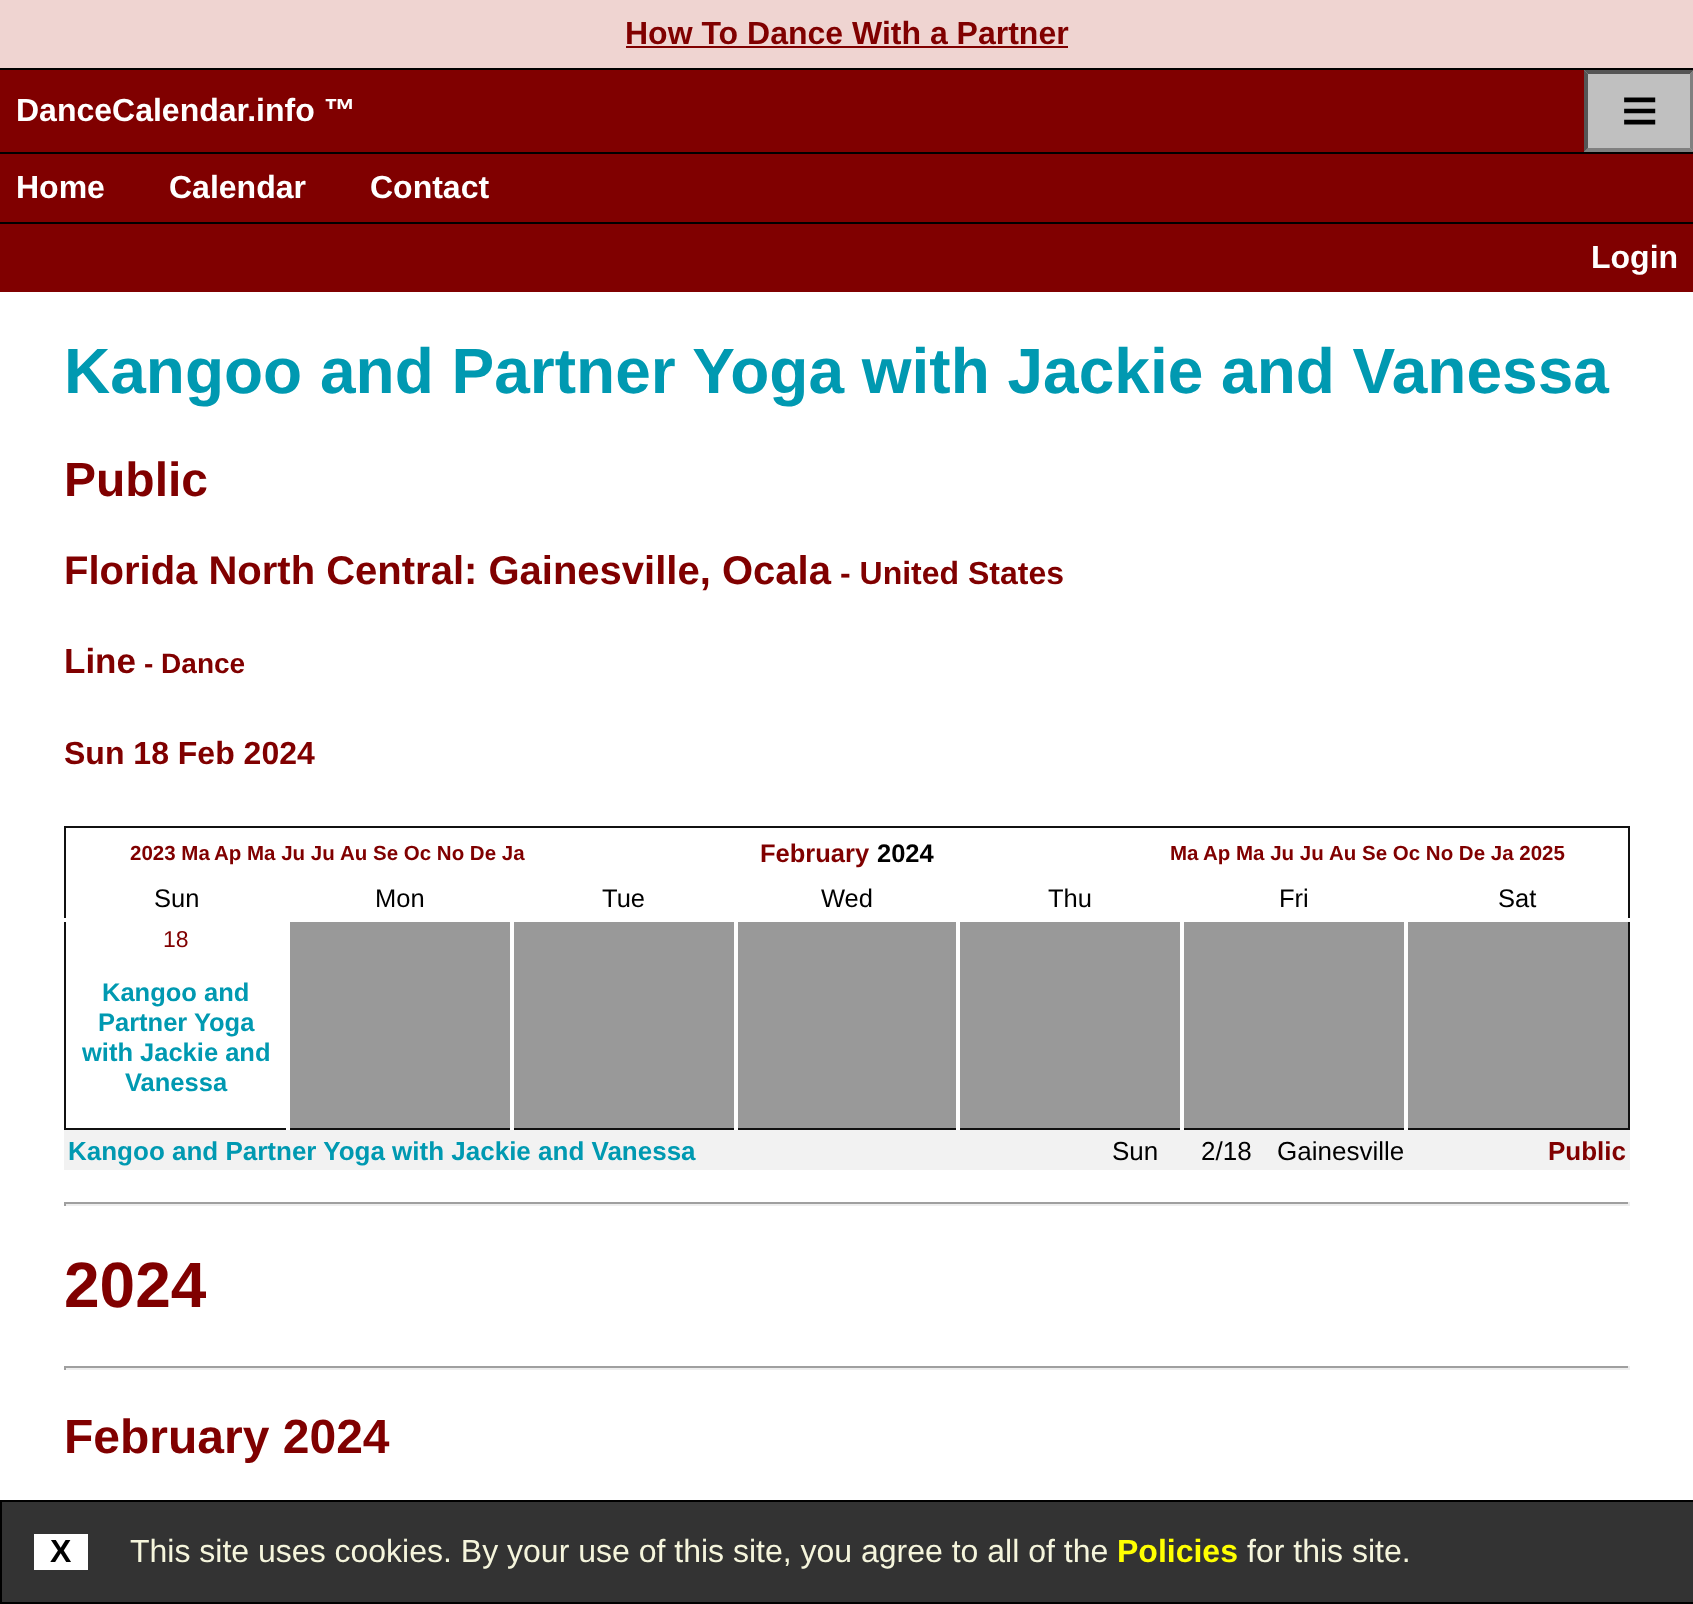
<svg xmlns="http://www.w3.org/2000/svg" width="1693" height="1604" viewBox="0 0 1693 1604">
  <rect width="100%" height="100%" fill="rgb(255,255,255)"/>
  <rect x="0" y="0" width="1693" height="68" fill="rgb(239,212,209)"/>
  <text x="625" y="44" font-family="Liberation Sans" font-size="32" font-weight="bold" fill="rgb(128,0,0)">How To Dance With a Partner</text>
  <rect x="626" y="46" width="442" height="2" fill="rgb(128,0,0)"/>
  <rect x="0" y="70" width="1584" height="82" fill="rgb(128,0,0)"/>
  <rect x="0" y="68" width="1693" height="2" fill="rgb(0,0,0)"/>
  <text x="16" y="121" font-family="Liberation Sans" font-size="32" font-weight="bold" fill="rgb(255,255,255)">DanceCalendar.info ™</text>
  <rect x="1584" y="70" width="109" height="82" fill="rgb(192,192,192)"/>
  <path d="M1584 70H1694L1690 74H1588Z" fill="rgb(85,85,85)"/>
  <path d="M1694 70V152L1690 148V74Z" fill="rgb(128,128,128)"/>
  <path d="M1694 152H1584L1588 148H1690Z" fill="rgb(128,128,128)"/>
  <path d="M1584 152V70L1588 74V148Z" fill="rgb(85,85,85)"/>
  <text x="1621" y="132" font-family="Liberation Sans" font-size="64" font-weight="bold" fill="rgb(0,0,0)">≡</text>
  <rect x="0" y="222" width="1693" height="2" fill="rgb(0,0,0)"/>
  <rect x="0" y="154" width="1693" height="68" fill="rgb(128,0,0)"/>
  <rect x="0" y="152" width="1693" height="2" fill="rgb(0,0,0)"/>
  <g font-family="Liberation Sans" font-size="32" font-weight="bold" fill="rgb(255,255,255)">
    <text x="16" y="198">Home</text>
    <text x="169" y="198">Calendar</text>
    <text x="370" y="198">Contact</text>
  </g>
  <rect x="0" y="224" width="1693" height="68" fill="rgb(128,0,0)"/>
  <text x="1591" y="268" font-family="Liberation Sans" font-size="32" font-weight="bold" fill="rgb(255,255,255)">Login</text>
  <text x="64" y="393" font-family="Liberation Sans" font-size="64" font-weight="bold" fill="rgb(0,153,177)">Kangoo and Partner Yoga with Jackie and Vanessa</text>
  <text x="64" y="496" font-family="Liberation Sans" font-size="48" font-weight="bold" fill="rgb(128,0,0)">Public</text>
  <text x="64" y="584" font-family="Liberation Sans" font-size="40" font-weight="bold" fill="rgb(128,0,0)">Florida North Central: Gainesville, Ocala</text>
  <text x="840" y="584" font-family="Liberation Sans" font-size="32" font-weight="bold" fill="rgb(128,0,0)">- United States</text>
  <text x="64" y="673" font-family="Liberation Sans" font-size="35" font-weight="bold" fill="rgb(128,0,0)">Line</text>
  <text x="144" y="673" font-family="Liberation Sans" font-size="28" font-weight="bold" fill="rgb(128,0,0)">- Dance</text>
  <text x="64" y="764" font-family="Liberation Sans" font-size="32" font-weight="bold" fill="rgb(128,0,0)">Sun 18 Feb 2024</text>
  <rect x="64" y="826" width="1566" height="2" fill="rgb(17,17,17)"/>
  <rect x="1628" y="826" width="2" height="304" fill="rgb(17,17,17)"/>
  <rect x="64" y="1128" width="1566" height="2" fill="rgb(17,17,17)"/>
  <rect x="64" y="826" width="2" height="304" fill="rgb(17,17,17)"/>
  <g font-family="Liberation Sans" font-size="20.5" font-weight="bold" fill="rgb(128,0,0)">
    <text x="130" y="860">2023 Ma</text>
    <text x="214" y="860">Ap Ma Ju Ju</text>
    <text x="340" y="860">Au Se Oc No De Ja</text>
  </g>
  <text x="760" y="862" font-family="Liberation Sans" font-size="25.5" font-weight="bold" fill="rgb(128,0,0)">February</text>
  <text x="877" y="862" font-family="Liberation Sans" font-size="25.5" font-weight="bold" fill="rgb(0,0,0)">2024</text>
  <g font-family="Liberation Sans" font-size="20.5" font-weight="bold" fill="rgb(128,0,0)">
    <text x="1170" y="860">Ma</text>
    <text x="1203" y="860">Ap Ma Ju Ju</text>
    <text x="1329" y="860">Au Se Oc No De Ja 2025</text>
  </g>
  <g font-family="Liberation Sans" font-size="25.5" fill="rgb(0,0,0)">
    <text x="154" y="907">Sun</text>
    <text x="375" y="907">Mon</text>
    <text x="602" y="907">Tue</text>
    <text x="821" y="907">Wed</text>
    <text x="1048" y="907">Thu</text>
    <text x="1279" y="907">Fri</text>
    <text x="1498" y="907">Sat</text>
  </g>
  <rect x="64" y="918" width="2" height="4" fill="rgb(255,255,255)"/>
  <text x="163" y="947" font-family="Liberation Sans" font-size="23" fill="rgb(128,0,0)">18</text>
  <g font-family="Liberation Sans" font-size="25.5" font-weight="bold" fill="rgb(0,153,177)">
    <text x="102" y="1001">Kangoo and</text>
    <text x="98" y="1031">Partner Yoga</text>
    <text x="82" y="1061">with Jackie and</text>
    <text x="125" y="1091">Vanessa</text>
  </g>
  <rect x="290" y="922" width="220" height="206" fill="rgb(153,153,153)"/>
  <rect x="286" y="1128" width="4" height="2" fill="rgb(255,255,255)"/>
  <rect x="514" y="922" width="220" height="206" fill="rgb(153,153,153)"/>
  <rect x="510" y="1128" width="4" height="2" fill="rgb(255,255,255)"/>
  <rect x="738" y="922" width="218" height="206" fill="rgb(153,153,153)"/>
  <rect x="734" y="1128" width="4" height="2" fill="rgb(255,255,255)"/>
  <rect x="960" y="922" width="220" height="206" fill="rgb(153,153,153)"/>
  <rect x="956" y="1128" width="4" height="2" fill="rgb(255,255,255)"/>
  <rect x="1184" y="922" width="220" height="206" fill="rgb(153,153,153)"/>
  <rect x="1180" y="1128" width="4" height="2" fill="rgb(255,255,255)"/>
  <rect x="1408" y="922" width="220" height="206" fill="rgb(153,153,153)"/>
  <rect x="1628" y="918" width="4" height="4" fill="rgb(255,255,255)"/>
  <rect x="1404" y="1128" width="4" height="2" fill="rgb(255,255,255)"/>
  <rect x="64" y="1130" width="1566" height="40" fill="rgb(242,242,242)"/>
  <text x="68" y="1160" font-family="Liberation Sans" font-size="26" font-weight="bold" fill="rgb(0,153,177)">Kangoo and Partner Yoga with Jackie and Vanessa</text>
  <g font-family="Liberation Sans" font-size="26" fill="rgb(0,0,0)">
    <text x="1112" y="1160">Sun</text>
    <text x="1201" y="1160">2/18</text>
    <text x="1277" y="1160">Gainesville</text>
  </g>
  <text x="1548" y="1160" font-family="Liberation Sans" font-size="26" font-weight="bold" fill="rgb(128,0,0)">Public</text>
  <rect x="64" y="1202" width="1566" height="2" fill="rgb(159,159,159)"/>
  <rect x="1628" y="1202" width="2" height="4" fill="rgb(238,238,238)"/>
  <rect x="64" y="1204" width="1566" height="2" fill="rgb(238,238,238)"/>
  <rect x="64" y="1202" width="2" height="4" fill="rgb(159,159,159)"/>
  <text x="64" y="1307" font-family="Liberation Sans" font-size="64" font-weight="bold" fill="rgb(128,0,0)">2024</text>
  <rect x="64" y="1366" width="1566" height="2" fill="rgb(159,159,159)"/>
  <rect x="1628" y="1366" width="2" height="4" fill="rgb(238,238,238)"/>
  <rect x="64" y="1368" width="1566" height="2" fill="rgb(238,238,238)"/>
  <rect x="64" y="1366" width="2" height="4" fill="rgb(159,159,159)"/>
  <text x="64" y="1453" font-family="Liberation Sans" font-size="48" font-weight="bold" fill="rgb(128,0,0)">February 2024</text>
  <rect x="1" y="1501" width="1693" height="102" fill="rgb(51,51,51)" stroke="rgb(0,0,0)" stroke-width="2"/>
  <rect x="34" y="1534" width="54" height="36" fill="rgb(255,255,255)"/>
  <text x="50" y="1562" font-family="Liberation Sans" font-size="32" font-weight="bold" fill="rgb(0,0,0)">X</text>
  <text x="130" y="1562" font-family="Liberation Sans" font-size="32" fill="rgb(245,245,220)">This site uses cookies. By your use of this site, you agree to all of the</text>
  <text x="1117" y="1562" font-family="Liberation Sans" font-size="32" font-weight="bold" fill="rgb(255,255,0)">Policies</text>
  <text x="1247" y="1562" font-family="Liberation Sans" font-size="32" fill="rgb(245,245,220)">for this site.</text>
</svg>
